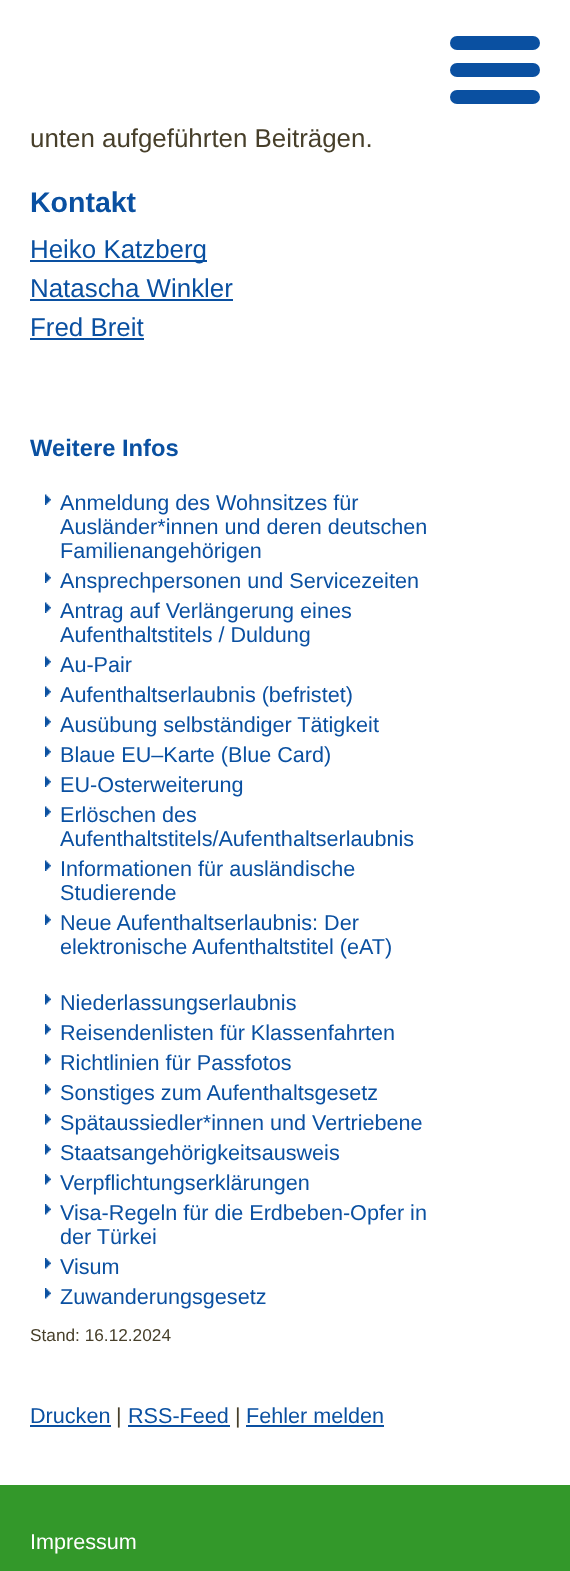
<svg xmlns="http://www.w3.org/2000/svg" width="570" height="1571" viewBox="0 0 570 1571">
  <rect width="100%" height="100%" fill="rgb(255,255,255)"/>
  <rect x="450" y="36" width="90" height="14" rx="7" fill="rgb(10,80,161)"/>
  <rect x="450" y="63" width="90" height="14" rx="7" fill="rgb(10,80,161)"/>
  <rect x="450" y="90" width="90" height="14" rx="7" fill="rgb(10,80,161)"/>
  <text x="30" y="147" font-family="Liberation Sans" font-size="25.9" fill="rgb(71,63,42)">unten aufgeführten Beiträgen.</text>
  <text x="30" y="212" font-family="Liberation Sans" font-size="28.5" font-weight="bold" fill="rgb(10,80,161)">Kontakt</text>
  <rect x="30" y="260" width="177" height="2" fill="rgb(10,80,161)"/>
  <g font-family="Liberation Sans" font-size="25.9" fill="rgb(10,80,161)">
    <text>
      <tspan x="30" y="258">Heiko Katzberg</tspan>
      <tspan x="30" y="297">Natascha Winkler</tspan>
    </text>
  </g>
  <rect x="30" y="299" width="203" height="2" fill="rgb(10,80,161)"/>
  <text x="30" y="336" font-family="Liberation Sans" font-size="25.9" fill="rgb(10,80,161)">Fred Breit</text>
  <rect x="30" y="338" width="114" height="2" fill="rgb(10,80,161)"/>
  <text x="30" y="456" font-family="Liberation Sans" font-size="23.75" font-weight="bold" fill="rgb(10,80,161)">Weitere Infos</text>
  <image x="45" y="494" width="6" height="11" href="pic1.png"/>
  <g font-family="Liberation Sans" font-size="21.6" fill="rgb(10,80,161)">
    <text>
      <tspan x="60" y="510">Anmeldung des Wohnsitzes für</tspan>
      <tspan x="60" y="534">Ausländer*innen und deren deutschen</tspan>
      <tspan x="60" y="558">Familienangehörigen</tspan>
    </text>
  </g>
  <image x="45" y="572" width="6" height="11" href="pic1.png"/>
  <text x="60" y="588" font-family="Liberation Sans" font-size="21.6" fill="rgb(10,80,161)">Ansprechpersonen und Servicezeiten</text>
  <image x="45" y="602" width="6" height="11" href="pic1.png"/>
  <g font-family="Liberation Sans" font-size="21.6" fill="rgb(10,80,161)">
    <text>
      <tspan x="60" y="618">Antrag auf Verlängerung eines</tspan>
      <tspan x="60" y="642">Aufenthaltstitels / Duldung</tspan>
    </text>
  </g>
  <image x="45" y="656" width="6" height="11" href="pic1.png"/>
  <text x="60" y="672" font-family="Liberation Sans" font-size="21.6" fill="rgb(10,80,161)">Au-Pair</text>
  <image x="45" y="686" width="6" height="11" href="pic1.png"/>
  <text x="60" y="702" font-family="Liberation Sans" font-size="21.6" fill="rgb(10,80,161)">Aufenthaltserlaubnis (befristet)</text>
  <image x="45" y="716" width="6" height="11" href="pic1.png"/>
  <text x="60" y="732" font-family="Liberation Sans" font-size="21.6" fill="rgb(10,80,161)">Ausübung selbständiger Tätigkeit</text>
  <image x="45" y="746" width="6" height="11" href="pic1.png"/>
  <text x="60" y="762" font-family="Liberation Sans" font-size="21.6" fill="rgb(10,80,161)">Blaue EU–Karte (Blue Card)</text>
  <image x="45" y="776" width="6" height="11" href="pic1.png"/>
  <text x="60" y="792" font-family="Liberation Sans" font-size="21.6" fill="rgb(10,80,161)">EU-Osterweiterung</text>
  <image x="45" y="806" width="6" height="11" href="pic1.png"/>
  <g font-family="Liberation Sans" font-size="21.6" fill="rgb(10,80,161)">
    <text>
      <tspan x="60" y="822">Erlöschen des</tspan>
      <tspan x="60" y="846">Aufenthaltstitels/Aufenthaltserlaubnis</tspan>
    </text>
  </g>
  <image x="45" y="860" width="6" height="11" href="pic1.png"/>
  <g font-family="Liberation Sans" font-size="21.6" fill="rgb(10,80,161)">
    <text>
      <tspan x="60" y="876">Informationen für ausländische</tspan>
      <tspan x="60" y="900">Studierende</tspan>
    </text>
  </g>
  <image x="45" y="914" width="6" height="11" href="pic1.png"/>
  <g font-family="Liberation Sans" font-size="21.6" fill="rgb(10,80,161)">
    <text>
      <tspan x="60" y="930">Neue Aufenthaltserlaubnis: Der</tspan>
      <tspan x="60" y="954">elektronische Aufenthaltstitel (eAT)</tspan>
    </text>
  </g>
  <image x="45" y="994" width="6" height="11" href="pic2.png"/>
  <text x="60" y="1010" font-family="Liberation Sans" font-size="21.6" fill="rgb(10,80,161)">Niederlassungserlaubnis</text>
  <image x="45" y="1024" width="6" height="11" href="pic2.png"/>
  <text x="60" y="1040" font-family="Liberation Sans" font-size="21.6" fill="rgb(10,80,161)">Reisendenlisten für Klassenfahrten</text>
  <image x="45" y="1054" width="6" height="11" href="pic2.png"/>
  <text x="60" y="1070" font-family="Liberation Sans" font-size="21.6" fill="rgb(10,80,161)">Richtlinien für Passfotos</text>
  <image x="45" y="1084" width="6" height="11" href="pic2.png"/>
  <text x="60" y="1100" font-family="Liberation Sans" font-size="21.6" fill="rgb(10,80,161)">Sonstiges zum Aufenthaltsgesetz</text>
  <image x="45" y="1114" width="6" height="11" href="pic2.png"/>
  <text x="60" y="1130" font-family="Liberation Sans" font-size="21.6" fill="rgb(10,80,161)">Spätaussiedler*innen und Vertriebene</text>
  <image x="45" y="1144" width="6" height="11" href="pic2.png"/>
  <text x="60" y="1160" font-family="Liberation Sans" font-size="21.6" fill="rgb(10,80,161)">Staatsangehörigkeitsausweis</text>
  <image x="45" y="1174" width="6" height="11" href="pic2.png"/>
  <text x="60" y="1190" font-family="Liberation Sans" font-size="21.6" fill="rgb(10,80,161)">Verpflichtungserklärungen</text>
  <image x="45" y="1204" width="6" height="11" href="pic2.png"/>
  <g font-family="Liberation Sans" font-size="21.6" fill="rgb(10,80,161)">
    <text>
      <tspan x="60" y="1220">Visa-Regeln für die Erdbeben-Opfer in</tspan>
      <tspan x="60" y="1244">der Türkei</tspan>
    </text>
  </g>
  <image x="45" y="1258" width="6" height="11" href="pic2.png"/>
  <text x="60" y="1274" font-family="Liberation Sans" font-size="21.6" fill="rgb(10,80,161)">Visum</text>
  <image x="45" y="1288" width="6" height="11" href="pic2.png"/>
  <text x="60" y="1304" font-family="Liberation Sans" font-size="21.6" fill="rgb(10,80,161)">Zuwanderungsgesetz</text>
  <text x="30" y="1341" font-family="Liberation Sans" font-size="17.25" fill="rgb(71,63,42)">Stand: 16.12.2024</text>
  <text x="30" y="1423" font-family="Liberation Sans" font-size="21.6" fill="rgb(10,80,161)">Drucken</text>
  <rect x="30" y="1425" width="81" height="2" fill="rgb(10,80,161)"/>
  <text x="116" y="1423" font-family="Liberation Sans" font-size="21.6" fill="rgb(71,63,42)">|</text>
  <text x="128" y="1423" font-family="Liberation Sans" font-size="21.6" fill="rgb(10,80,161)">RSS-Feed</text>
  <rect x="128" y="1425" width="102" height="2" fill="rgb(10,80,161)"/>
  <text x="235" y="1423" font-family="Liberation Sans" font-size="21.6" fill="rgb(71,63,42)">|</text>
  <text x="246" y="1423" font-family="Liberation Sans" font-size="21.6" fill="rgb(10,80,161)">Fehler melden</text>
  <rect x="246" y="1425" width="138" height="2" fill="rgb(10,80,161)"/>
  <rect x="0" y="1485" width="570" height="86" fill="rgb(51,152,42)"/>
  <text x="30" y="1549" font-family="Liberation Sans" font-size="21.6" fill="rgb(255,255,255)">Impressum</text>
</svg>
